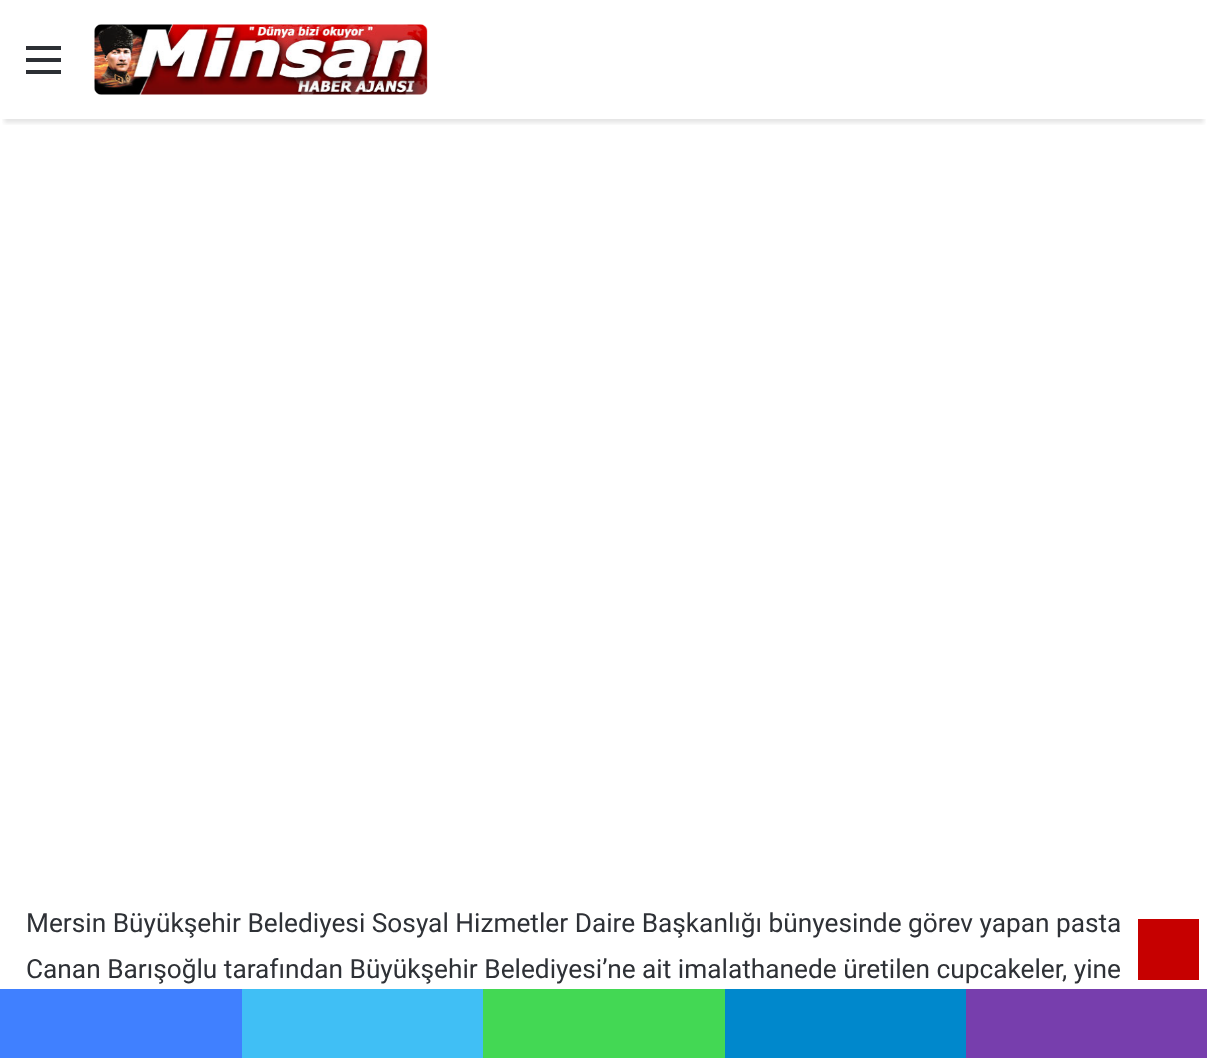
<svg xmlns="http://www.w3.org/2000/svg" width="1207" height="1058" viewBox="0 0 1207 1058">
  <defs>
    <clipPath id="clip1"><rect x="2" y="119" width="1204" height="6"/></clipPath>
  </defs>
  <rect width="100%" height="100%" fill="rgb(255,255,255)"/>
  <g clip-path="url(#clip1)">
    <rect x="4" y="11" width="1200" height="112" fill="rgba(0,0,0,0.1)" filter="blur(2px)"/>
  </g>
  <rect x="26" y="58" width="35" height="4" fill="rgb(44,47,52)"/>
  <rect x="26" y="46" width="35" height="4" fill="rgb(44,47,52)"/>
  <rect x="26" y="70" width="35" height="4" fill="rgb(44,47,52)"/>
  <image x="94" y="24" width="334" height="71" href="pic1.png"/>
  <g font-family="Roboto" font-size="26.25" fill="rgb(46,49,54)">
    <text>
      <tspan x="26" y="932">Mersin Büyükşehir Belediyesi Sosyal Hizmetler Daire Başkanlığı bünyesinde görev yapan pasta</tspan>
      <tspan x="26" y="978">Canan Barışoğlu tarafından Büyükşehir Belediyesi’ne ait imalathanede üretilen cupcakeler, yine</tspan>
    </text>
  </g>
  <rect x="1138" y="919" width="61" height="61" fill="rgb(198,0,0)"/>
  <rect x="0" y="989" width="242" height="69" fill="rgb(64,128,255)"/>
  <rect x="242" y="989" width="241" height="69" fill="rgb(64,191,245)"/>
  <rect x="483" y="989" width="242" height="69" fill="rgb(67,216,84)"/>
  <rect x="725" y="989" width="241" height="69" fill="rgb(0,136,204)"/>
  <rect x="966" y="989" width="241" height="69" fill="rgb(119,62,173)"/>
</svg>
